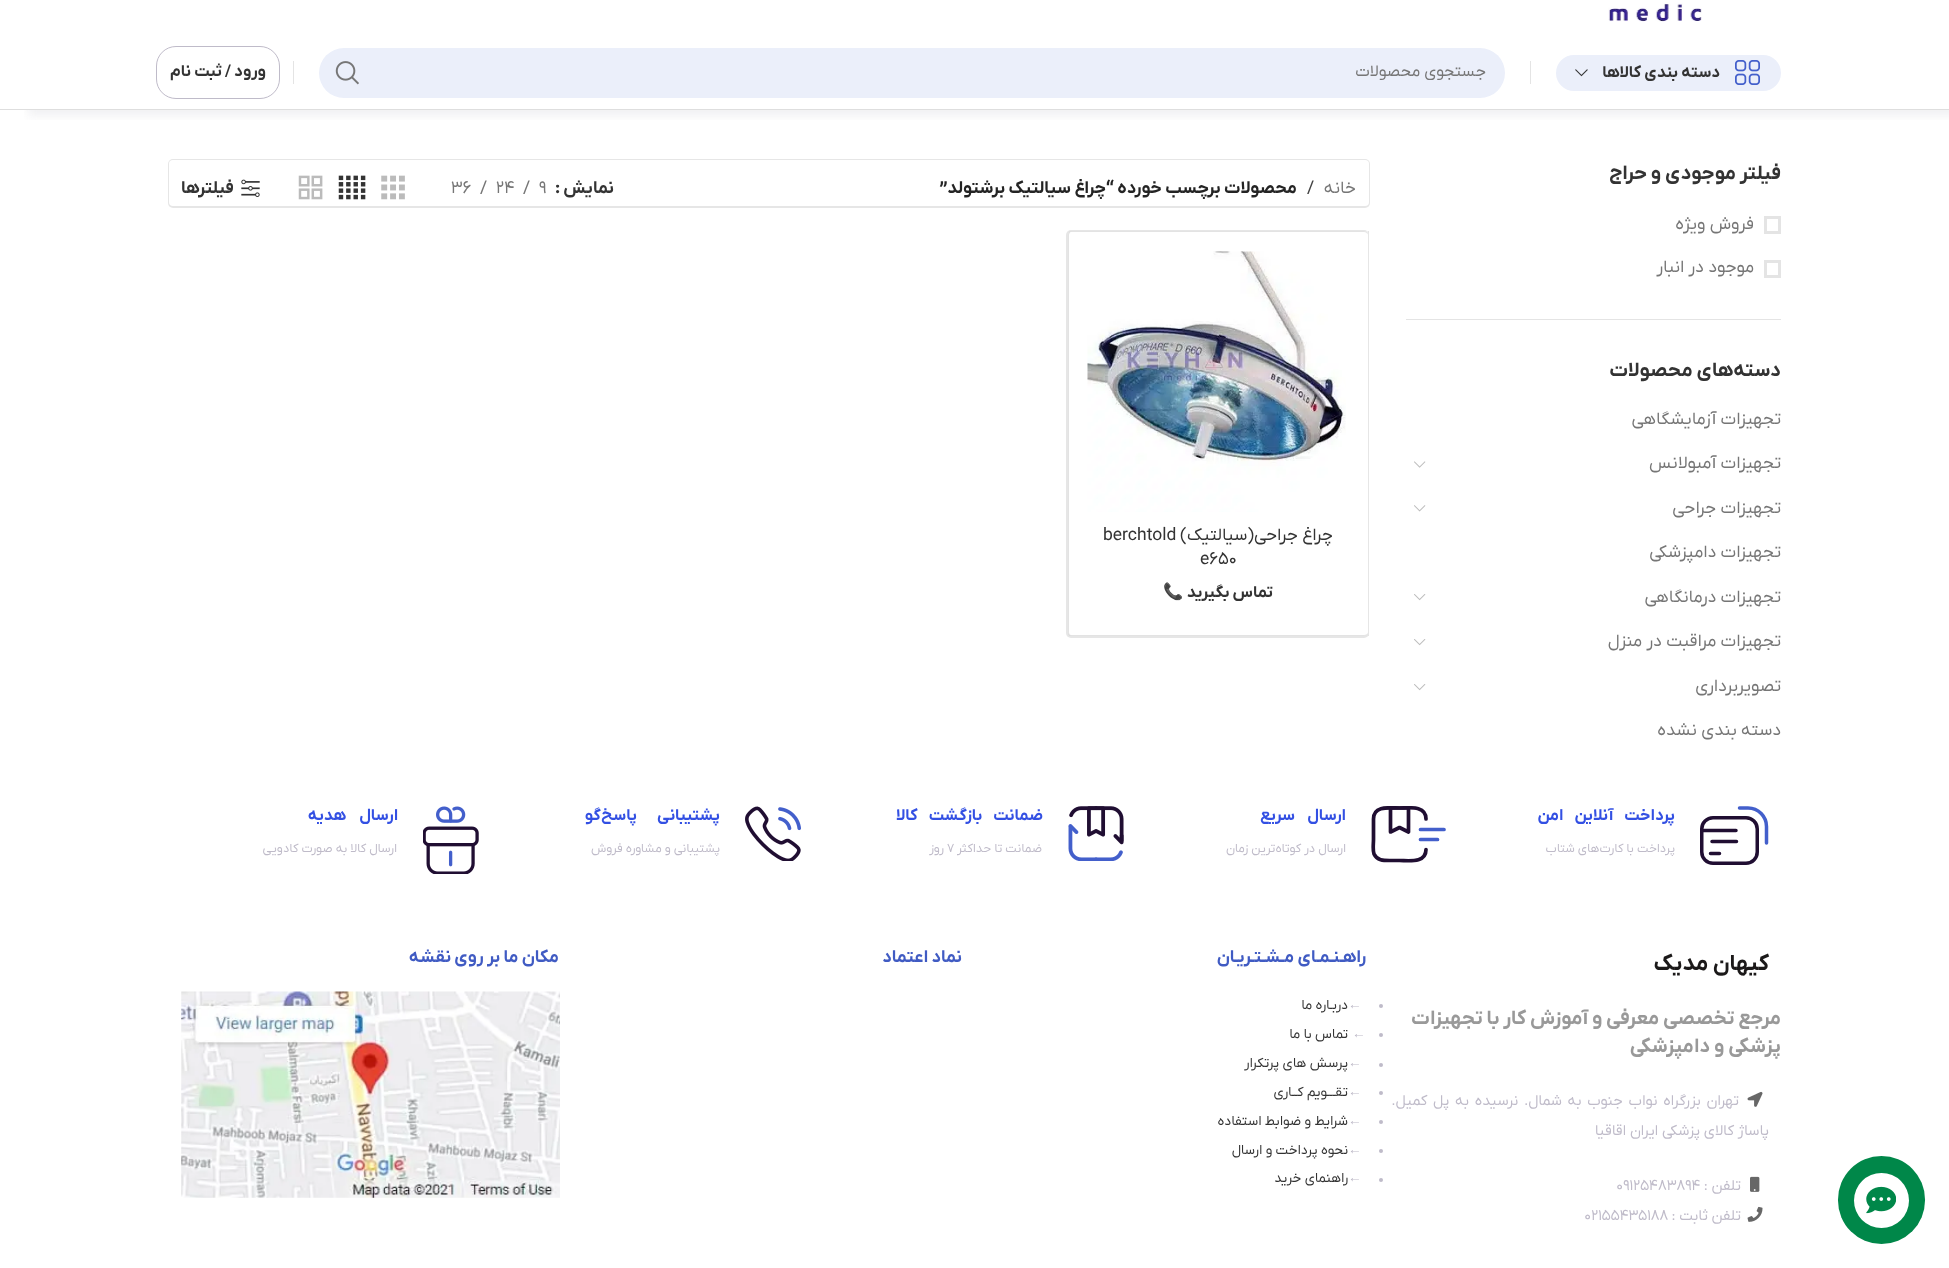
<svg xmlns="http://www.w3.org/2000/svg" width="1949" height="1268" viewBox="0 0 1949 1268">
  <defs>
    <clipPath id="clip1"><rect x="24" y="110" width="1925" height="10"/></clipPath>
    <clipPath id="clip2"><rect x="1371" y="806" width="75" height="57"/></clipPath>
  </defs>
  <rect width="100%" height="100%" fill="rgb(255,255,255)"/>
  <rect x="1838" y="1156" width="87" height="88" rx="43.5" fill="rgb(0,135,73)"/>
  <circle cx="1881.5" cy="1200.5" r="27.5" fill="rgb(255,255,255)"/>
  <image x="1866" y="1186" width="30" height="28" href="pic1.png"/>
  <image x="1608" y="2" width="94" height="20" href="pic2.png"/>
  <g clip-path="url(#clip1)">
    <rect x="28" y="41" width="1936" height="75" fill="rgba(118,120,139,0.1)" filter="blur(5px)"/>
  </g>
  <rect x="0" y="109" width="1949" height="1" fill="rgb(222,222,222)"/>
  <rect x="1556" y="55" width="225" height="36" rx="18" fill="rgb(235,239,250)"/>
  <image x="1735" y="60" width="25" height="25" href="pic3.png"/>
  <text x="1720" y="77" font-family="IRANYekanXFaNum" font-size="16.25" font-weight="bold" direction="rtl" fill="rgb(51,51,51)">دسته بندی کالاها</text>
  <image x="1575" y="69" width="13" height="8" href="pic4.png"/>
  <rect x="1530" y="61" width="1" height="23" fill="rgb(228,228,228)"/>
  <rect x="319" y="48" width="1186" height="50" rx="25" fill="rgb(235,239,250)"/>
  <text x="1486" y="76" font-family="IRANYekanXFaNum" font-size="16.25" direction="rtl" fill="rgb(118,118,118)">جستجوی محصولات</text>
  <image x="335" y="61" width="24" height="24" href="pic5.png"/>
  <rect x="293" y="61" width="1" height="23" fill="rgb(228,228,228)"/>
  <rect x="156.5" y="46.5" width="123" height="52" rx="19.5" fill="none" stroke="rgb(191,187,201)"/>
  <text x="266" y="76" font-family="IRANYekanXFaNum" font-size="16.25" font-weight="bold" direction="rtl" fill="rgb(51,51,51)">ورود / ثبت نام</text>
  <rect x="1406" y="319" width="375" height="1" fill="rgb(228,228,228)"/>
  <text x="1781" y="179" font-family="IRANYekanXFaNum" font-size="20" font-weight="bold" direction="rtl" fill="rgb(51,51,51)">فیلتر موجودی و حراج</text>
  <rect x="1765.5" y="217.5" width="14" height="15" fill="none" stroke="rgb(228,228,228)" stroke-width="3"/>
  <text x="1754" y="229" font-family="IRANYekanXFaNum" font-size="17.5" direction="rtl" fill="rgb(118,118,118)">فروش ویژه</text>
  <rect x="1765.5" y="261.5" width="14" height="15" fill="none" stroke="rgb(228,228,228)" stroke-width="3"/>
  <text x="1754" y="272" font-family="IRANYekanXFaNum" font-size="17.5" direction="rtl" fill="rgb(118,118,118)">موجود در انبار</text>
  <text x="1781" y="376" font-family="IRANYekanXFaNum" font-size="20" font-weight="bold" direction="rtl" fill="rgb(51,51,51)">دسته‌های محصولات</text>
  <g font-family="IRANYekanXFaNum" font-size="17.5" direction="rtl" fill="rgb(118,118,118)">
    <text x="1781" y="424">تجهیزات آزمایشگاهی</text>
    <text x="1781" y="468">تجهیزات آمبولانس</text>
  </g>
  <image x="1414" y="461" width="12" height="7" href="pic6.png"/>
  <text x="1781" y="513" font-family="IRANYekanXFaNum" font-size="17.5" direction="rtl" fill="rgb(118,118,118)">تجهیزات جراحی</text>
  <image x="1414" y="505" width="12" height="7" href="pic7.png"/>
  <g font-family="IRANYekanXFaNum" font-size="17.5" direction="rtl" fill="rgb(118,118,118)">
    <text x="1781" y="557">تجهیزات دامپزشکی</text>
    <text x="1781" y="602">تجهیزات درمانگاهی</text>
  </g>
  <image x="1414" y="594" width="12" height="7" href="pic8.png"/>
  <text x="1781" y="646" font-family="IRANYekanXFaNum" font-size="17.5" direction="rtl" fill="rgb(118,118,118)">تجهیزات مراقبت در منزل</text>
  <image x="1414" y="639" width="12" height="7" href="pic8.png"/>
  <text x="1781" y="691" font-family="IRANYekanXFaNum" font-size="17.5" direction="rtl" fill="rgb(118,118,118)">تصویربرداری</text>
  <image x="1414" y="684" width="12" height="7" href="pic8.png"/>
  <text x="1781" y="735" font-family="IRANYekanXFaNum" font-size="17.5" direction="rtl" fill="rgb(118,118,118)">دسته بندی نشده</text>
  <rect x="168" y="159" width="1202" height="49" rx="5" fill="rgb(230,230,230)" filter="blur(0.5px)"/>
  <rect x="169" y="160" width="1200" height="46" rx="4" fill="rgb(255,255,255)"/>
  <text x="1356" y="193" font-family="IRANYekanXFaNum" font-size="17.5" direction="rtl" fill="rgb(118,118,118)">خانه</text>
  <text x="1307" y="193" font-family="IRANYekanXFaNum" font-size="17.5" fill="rgb(68,68,68)">/</text>
  <g font-family="IRANYekanXFaNum" font-size="17.5" font-weight="bold" direction="rtl" fill="rgb(36,36,36)">
    <text x="1297" y="193">محصولات برچسب خورده</text>
    <text x="1114" y="193">“چراغ سیالتیک برشتولد”</text>
  </g>
  <text x="614" y="193" font-family="IRANYekanXFaNum" font-size="17.5" font-weight="bold" direction="rtl" fill="rgb(51,51,51)">نمایش</text>
  <text x="555" y="193" font-family="IRANYekanXFaNum" font-size="17.5" font-weight="bold" fill="rgb(51,51,51)">:</text>
  <g font-family="IRANYekanXFaNum" font-size="17.5" fill="rgb(118,118,118)">
    <text x="539" y="193">9</text>
    <text x="523" y="193">/</text>
    <text x="496" y="193">24</text>
    <text x="480" y="193">/</text>
    <text x="451" y="193">36</text>
  </g>
  <image x="381" y="175" width="24" height="25" href="pic9.png"/>
  <image x="338" y="175" width="28" height="25" href="pic10.png"/>
  <image x="298" y="175" width="25" height="25" href="pic11.png"/>
  <image x="241" y="179" width="19" height="18" href="pic12.png"/>
  <text x="234" y="193" font-family="IRANYekanXFaNum" font-size="17.5" font-weight="bold" direction="rtl" fill="rgb(51,51,51)">فیلترها</text>
  <rect x="1368" y="231" width="1" height="405" fill="rgb(228,228,228)"/>
  <rect x="1066" y="230" width="303" height="408" rx="5" fill="rgb(230,230,230)" filter="blur(0.5px)"/>
  <rect x="1068" y="231" width="300" height="405" rx="4" fill="rgb(255,255,255)"/>
  <path d="M1071 231H1364C1366 231 1368 233 1368 235V632C1368 635 1366 636 1364 636H1071C1069 636 1068 635 1068 632V235C1068 233 1069 231 1071 231ZM1071 232H1364C1366 232 1368 234 1368 235V632C1368 634 1366 635 1364 635H1071C1070 635 1069 634 1069 632V235C1069 234 1070 232 1071 232Z" fill="rgba(0,0,0,0.11)" fill-rule="evenodd"/>
  <image x="1087" y="251" width="259" height="261" href="pic13.png"/>
  <text x="1333" y="540" font-family="IRANYekanXFaNum" font-size="17.5" direction="rtl" fill="rgb(51,51,51)">چراغ جراحی(سیالتیک)</text>
  <g font-family="IRANYekanXFaNum" font-size="17.5" fill="rgb(51,51,51)">
    <text x="1103" y="540">berchtold</text>
    <text x="1200" y="564">e650</text>
  </g>
  <text x="1273" y="597" font-family="IRANYekanXFaNum" font-size="16.25" font-weight="bold" direction="rtl" fill="rgb(51,51,51)">تماس بگیرید</text>
  <text x="1184" y="597" font-family="Noto Color Emoji" font-size="16.25" font-weight="bold" direction="rtl" fill="rgb(51,51,51)">📞</text>
  <rect x="1701.75" y="817.75" width="55.5" height="45.5" rx="11.25" fill="none" stroke="rgb(32,14,50)" stroke-width="3.5"/>
  <path d="M1739.5 808H1748C1758.5 808 1766.5 816.5 1766.5 826.5V843" fill="none" stroke="rgb(67,95,203)" stroke-width="3.5" stroke-linecap="round" stroke-linejoin="round"/>
  <path d="M1710.5 853.5H1719.5M1712 841.5H1736.5M1702 830.5H1736" fill="none" stroke="rgb(32,14,50)" stroke-width="3.5" stroke-linecap="round" stroke-linejoin="round"/>
  <text x="1675" y="820" word-spacing="8" font-family="IRANYekanXFaNum" font-size="16.25" font-weight="bold" letter-spacing="-1" direction="rtl" fill="rgb(51,80,227)">پرداخت آنلاین امن</text>
  <text x="1675" y="852" font-family="IRANYekanXFaNum" font-size="12.5" direction="rtl" fill="rgb(191,187,201)">پرداخت با کارت‌های شتاب</text>
  <g clip-path="url(#clip2)">
    <path d="M1426 819C1426 805 1408.5 808 1399.5 808C1390.5 808 1373.5 805 1373.5 819V839.5C1373.5 844 1372.5 849.5 1374 854C1377 860.5 1383.5 860.5 1389.5 860.5H1399.5C1408.5 860.5 1426 863.5 1426 849.5" fill="none" stroke="rgb(32,14,50)" stroke-width="3.7" stroke-linecap="round" stroke-linejoin="round"/>
  </g>
  <path d="M1420.5 829.5H1444M1420.5 839.5H1437.5" fill="none" stroke="rgb(67,95,203)" stroke-width="3.7" stroke-linecap="round" stroke-linejoin="round"/>
  <path d="M1390.5 832L1399.5 827.5L1408.5 832V808H1390.5Z" fill="none" stroke="rgb(32,14,50)" stroke-width="3.7" stroke-linecap="round" stroke-linejoin="round"/>
  <text x="1346" y="820" word-spacing="9" font-family="IRANYekanXFaNum" font-size="16.25" font-weight="bold" letter-spacing="-1" direction="rtl" fill="rgb(51,80,227)">ارسال سریع</text>
  <text x="1346" y="852" font-family="IRANYekanXFaNum" font-size="12.5" direction="rtl" fill="rgb(191,187,201)">ارسال در کوتاه‌ترین زمان</text>
  <image x="1068" y="806" width="56" height="55" href="pic14.png"/>
  <text x="1043" y="820" word-spacing="8" font-family="IRANYekanXFaNum" font-size="16.25" font-weight="bold" letter-spacing="-1" direction="rtl" fill="rgb(51,80,227)">ضمانت بازگشت کالا</text>
  <text x="1042" y="852" font-family="IRANYekanXFaNum" font-size="12.5" direction="rtl" fill="rgb(191,187,201)">ضمانت تا حداکثر</text>
  <text x="947" y="852" font-family="IRANYekanXFaNum" font-size="12.5" fill="rgb(191,187,201)">۷</text>
  <text x="944" y="852" font-family="IRANYekanXFaNum" font-size="12.5" direction="rtl" fill="rgb(191,187,201)">روز</text>
  <image x="745" y="806" width="56" height="55" href="pic15.png"/>
  <text x="720" y="820" word-spacing="17" font-family="IRANYekanXFaNum" font-size="16.25" font-weight="bold" letter-spacing="-1" direction="rtl" fill="rgb(51,80,227)">پشتیبانی پاسخ‌گو</text>
  <text x="720" y="852" font-family="IRANYekanXFaNum" font-size="12.5" direction="rtl" fill="rgb(191,187,201)">پشتیبانی و مشاوره فروش</text>
  <image x="423" y="806" width="56" height="68" href="pic16.png"/>
  <text x="398" y="820" word-spacing="10" font-family="IRANYekanXFaNum" font-size="16.25" font-weight="bold" letter-spacing="-1" direction="rtl" fill="rgb(51,80,227)">ارسال هدیه</text>
  <text x="397" y="852" font-family="IRANYekanXFaNum" font-size="12.5" direction="rtl" fill="rgb(191,187,201)">ارسال کالا به صورت کادویی</text>
  <text x="1769" y="970" font-family="IRANYekanXFaNum" font-size="22.5" font-weight="bold" direction="rtl" fill="rgb(27,25,25)">کیهان مدیک</text>
  <g font-family="IRANYekanXFaNum" font-size="20" font-weight="bold" direction="rtl" fill="rgb(153,153,153)">
    <text>
      <tspan x="1781" y="1024">مرجع تخصصی معرفی و آموزش کار با تجهیزات</tspan>
      <tspan x="1781" y="1052">پزشکی و دامپزشکی</tspan>
    </text>
  </g>
  <image x="1747" y="1091" width="16" height="16" href="pic17.png"/>
  <g font-family="IRANYekanXFaNum" font-size="15" direction="rtl" fill="rgb(191,187,201)">
    <text x="1739" y="1105" word-spacing="2">تهران بزرگراه نواب جنوب به شمال. نرسیده به پل کمیل.</text>
    <text x="1769" y="1135">پاساژ کالای پزشکی ایران اقاقیا</text>
  </g>
  <image x="1750" y="1176" width="10" height="16" href="pic18.png"/>
  <text x="1741" y="1190" font-family="IRANYekanXFaNum" font-size="15" direction="rtl" fill="rgb(191,187,201)">تلفن :</text>
  <text x="1616" y="1190" font-family="IRANYekanXFaNum" font-size="15" fill="rgb(191,187,201)">۰۹۱۲۵۴۸۳۸۹۴</text>
  <image x="1747" y="1206" width="16" height="16" href="pic19.png"/>
  <text x="1741" y="1220" font-family="IRANYekanXFaNum" font-size="15" direction="rtl" fill="rgb(191,187,201)">تلفن ثابت :</text>
  <text x="1584" y="1220" font-family="IRANYekanXFaNum" font-size="15" fill="rgb(191,187,201)">۰۲۱۵۵۴۳۵۱۸۸</text>
  <text x="1366" y="962" font-family="IRANYekanXFaNum" font-size="17.5" font-weight="bold" direction="rtl" fill="rgb(64,91,195)">راهـنـمـای مـشـتـریـان</text>
  <circle cx="1381" cy="1006" r="2" fill="rgb(191,187,201)"/>
  <text x="1348" y="1009" font-family="Liberation Serif" font-size="13.75" fill="rgb(191,187,201)">←</text>
  <text x="1348" y="1009" font-family="IRANYekanXFaNum" font-size="13.75" direction="rtl" fill="rgb(51,51,51)">دربـاره ما</text>
  <circle cx="1381" cy="1035" r="2" fill="rgb(191,187,201)"/>
  <text x="1352" y="1038" font-family="Liberation Serif" font-size="13.75" fill="rgb(191,187,201)">←</text>
  <text x="1348" y="1038" font-family="IRANYekanXFaNum" font-size="13.75" direction="rtl" fill="rgb(51,51,51)">تماس با ما</text>
  <circle cx="1381" cy="1065" r="2" fill="rgb(191,187,201)"/>
  <text x="1348" y="1067" font-family="Liberation Serif" font-size="13.75" fill="rgb(191,187,201)">←</text>
  <text x="1348" y="1067" font-family="IRANYekanXFaNum" font-size="13.75" direction="rtl" fill="rgb(51,51,51)">پرسش های پرتکرار</text>
  <circle cx="1381" cy="1093" r="2" fill="rgb(191,187,201)"/>
  <text x="1348" y="1096" font-family="Liberation Serif" font-size="13.75" fill="rgb(191,187,201)">←</text>
  <text x="1348" y="1096" font-family="IRANYekanXFaNum" font-size="13.75" direction="rtl" fill="rgb(51,51,51)">تقـــویم کــاری</text>
  <circle cx="1381" cy="1122" r="2" fill="rgb(191,187,201)"/>
  <text x="1348" y="1125" font-family="Liberation Serif" font-size="13.75" fill="rgb(191,187,201)">←</text>
  <text x="1348" y="1125" font-family="IRANYekanXFaNum" font-size="13.75" direction="rtl" fill="rgb(51,51,51)">شرایط و ضوابط استفاده</text>
  <circle cx="1381" cy="1151" r="2" fill="rgb(191,187,201)"/>
  <text x="1348" y="1154" font-family="Liberation Serif" font-size="13.75" fill="rgb(191,187,201)">←</text>
  <text x="1348" y="1154" font-family="IRANYekanXFaNum" font-size="13.75" direction="rtl" fill="rgb(51,51,51)">نحوه پرداخت و ارسال</text>
  <circle cx="1381" cy="1180" r="2" fill="rgb(191,187,201)"/>
  <text x="1348" y="1182" font-family="Liberation Serif" font-size="13.75" fill="rgb(191,187,201)">←</text>
  <text x="1348" y="1182" font-family="IRANYekanXFaNum" font-size="13.75" direction="rtl" fill="rgb(51,51,51)">راهنمای خرید</text>
  <g font-family="IRANYekanXFaNum" font-size="17.5" font-weight="bold" direction="rtl" fill="rgb(64,91,195)">
    <text x="962" y="962">نماد اعتماد</text>
    <text x="559" y="962">مکان ما بر روی نقشه</text>
  </g>
  <image x="181" y="991" width="379" height="207" href="pic20.png"/>
</svg>
